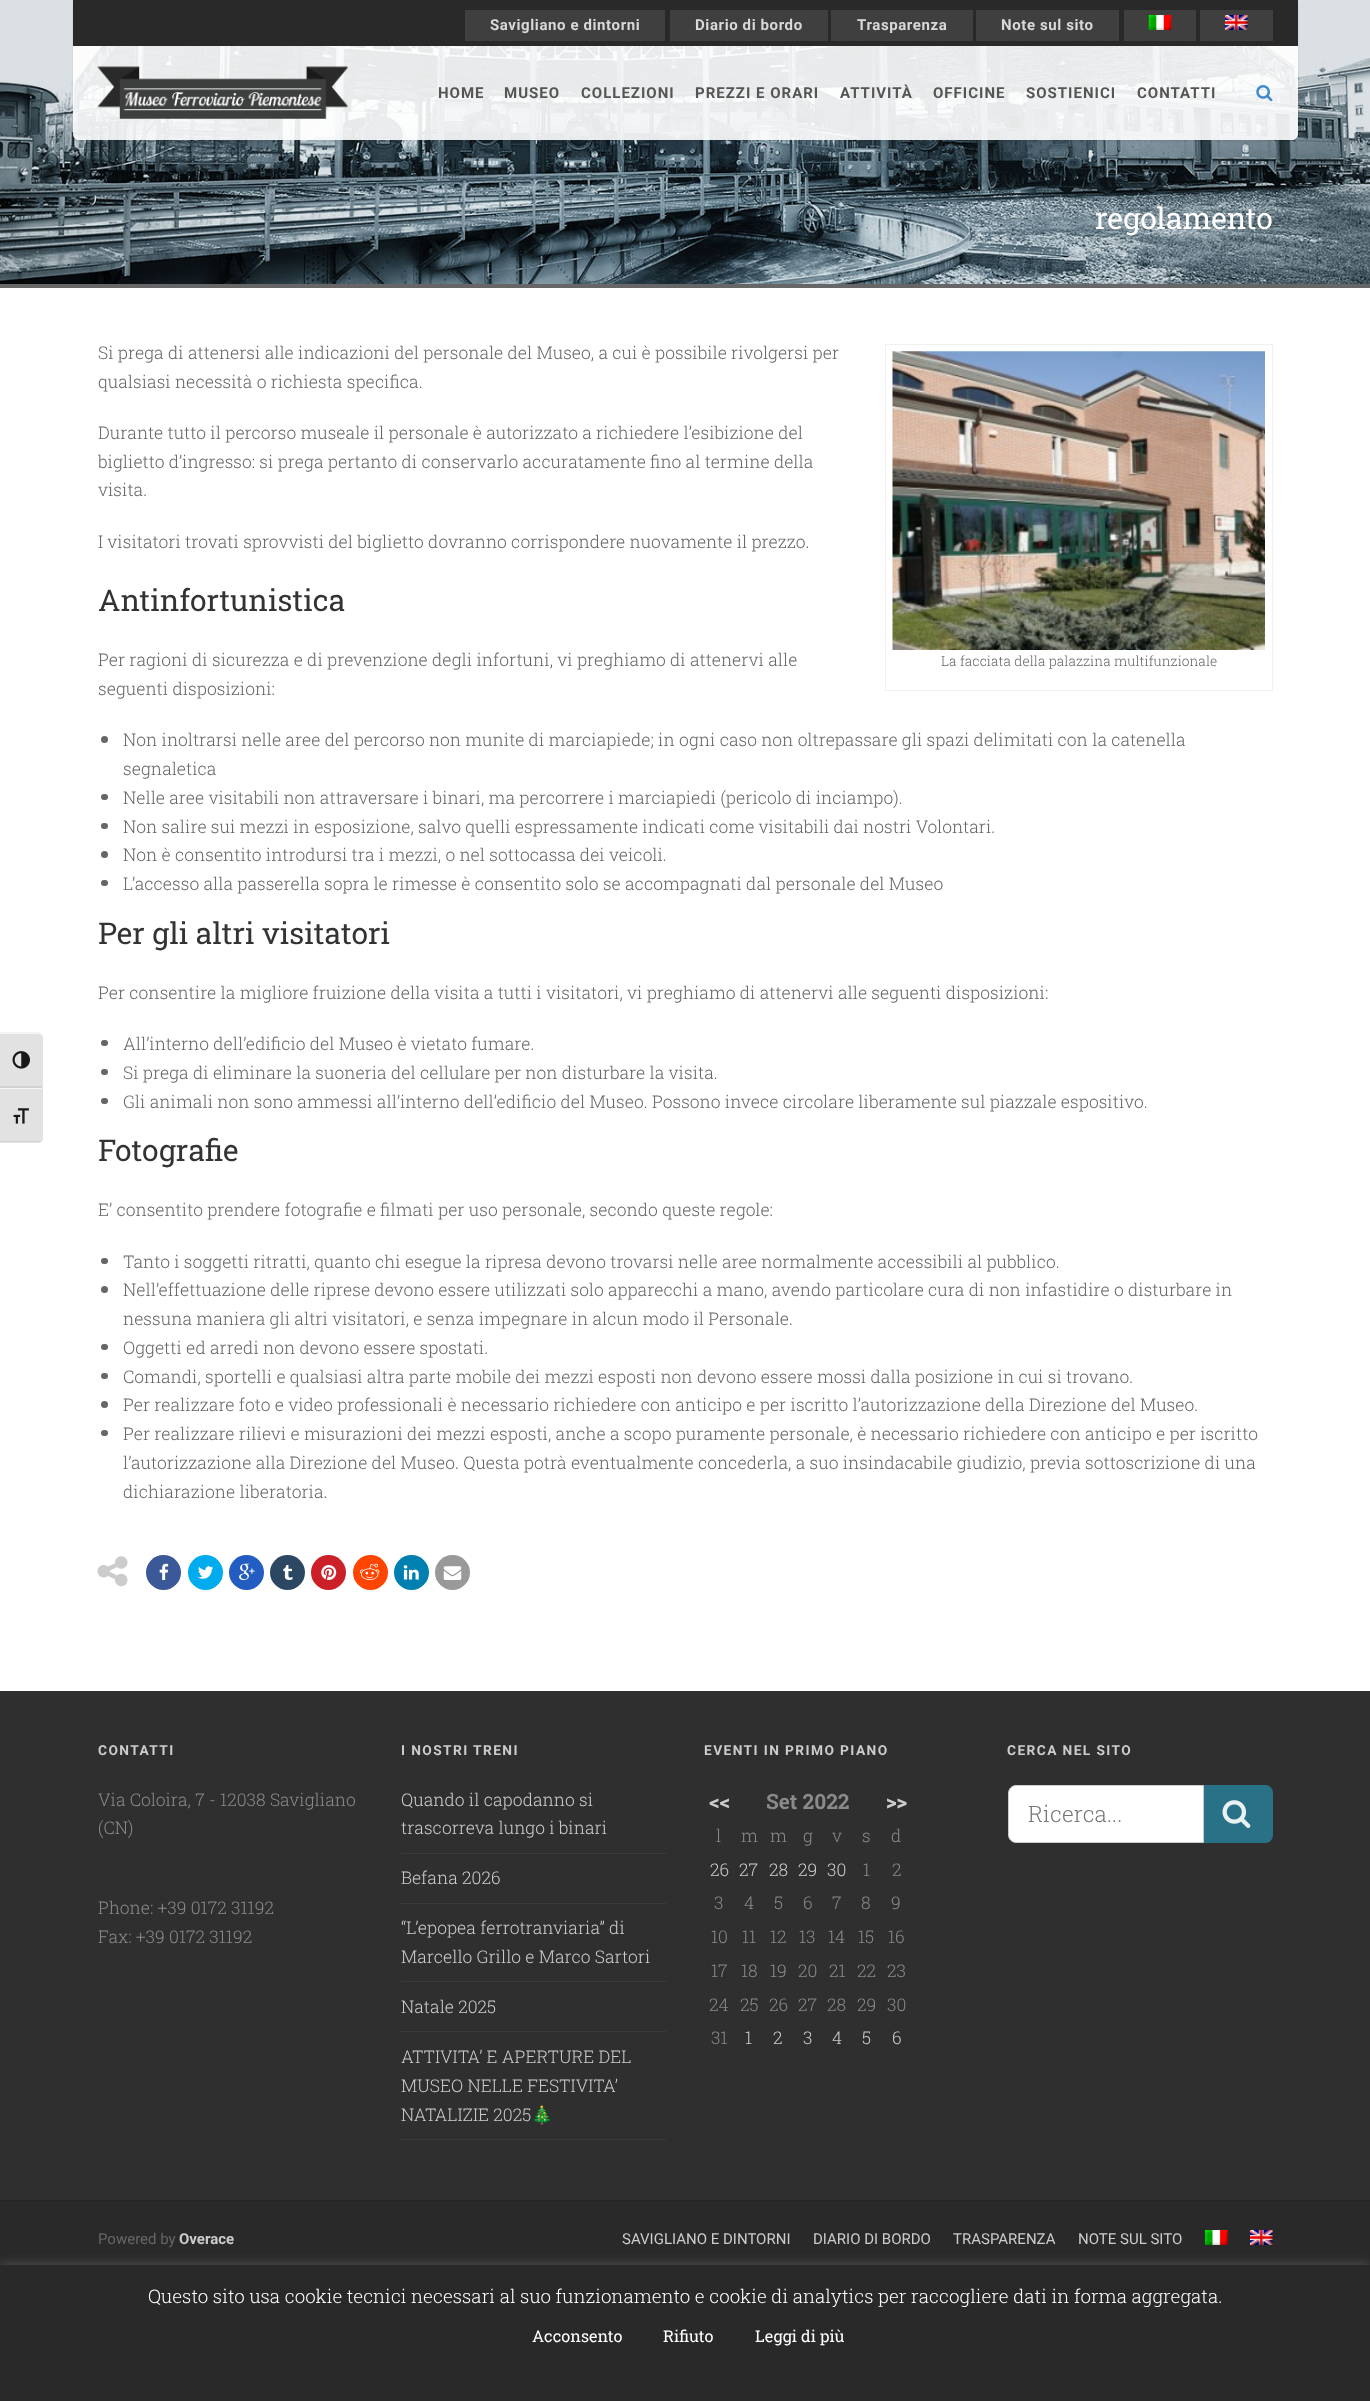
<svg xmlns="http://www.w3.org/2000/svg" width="1370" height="2401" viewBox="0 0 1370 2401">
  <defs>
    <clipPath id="clip1"><path d="M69 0H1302V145H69ZM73 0H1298V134C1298 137.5 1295.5 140 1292 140H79C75.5 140 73 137.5 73 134Z" clip-rule="evenodd"/></clipPath>
  </defs>
  <rect width="100%" height="100%" fill="rgb(255,255,255)"/>
  <path d="M0 1033H38C41 1033 43 1035 43 1038V1088H0Z" fill="rgb(226,226,226)"/>
  <path d="M0 1034H38C40 1034 42 1035 42 1038C42 1036 41 1033 39 1032H0Z" fill="rgb(245,245,245)"/>
  <rect x="0" y="1086" width="42" height="2" fill="rgb(210,210,210)"/>
  <image x="12" y="1051" width="18" height="18" href="pic1.png"/>
  <path d="M0 1088H43V1138C43 1141 41 1143 38 1143H0Z" fill="rgb(226,226,226)"/>
  <rect x="0" y="1088" width="42" height="1" fill="rgb(245,245,245)"/>
  <path d="M38 1142C40 1142 42 1140 42 1138C42 1140 40 1141 38 1141H0V1142Z" fill="rgb(210,210,210)"/>
  <image x="13" y="1108" width="16" height="16" href="pic2.png"/>
  <image x="0" y="0" width="1370" height="284" href="pic7.png"/>
  <g clip-path="url(#clip1)">
    <rect x="73" y="1" width="1225" height="140" rx="6" fill="rgba(0,0,0,0.1)" filter="blur(1px)"/>
  </g>
  <rect x="73" y="0" width="1225" height="46" fill="rgb(41,41,41)"/>
  <rect x="465" y="10" width="200" height="31" fill="rgb(63,63,63)"/>
  <text x="490" y="30" font-family="Roboto" font-size="15" font-weight="bold" letter-spacing="0.6" fill="rgb(217,217,217)">Savigliano e dintorni</text>
  <rect x="670" y="10" width="158" height="31" fill="rgb(63,63,63)"/>
  <text x="695" y="30" font-family="Roboto" font-size="15" font-weight="bold" letter-spacing="0.6" fill="rgb(217,217,217)">Diario di bordo</text>
  <rect x="831" y="10" width="142" height="31" fill="rgb(63,63,63)"/>
  <text x="857" y="30" font-family="Roboto" font-size="15" font-weight="bold" letter-spacing="0.6" fill="rgb(217,217,217)">Trasparenza</text>
  <rect x="976" y="10" width="143" height="31" fill="rgb(63,63,63)"/>
  <text x="1001" y="30" font-family="Roboto" font-size="15" font-weight="bold" letter-spacing="0.6" fill="rgb(217,217,217)">Note sul sito</text>
  <rect x="1124" y="10" width="72" height="31" fill="rgb(63,63,63)"/>
  <image x="1148" y="15" width="24" height="15" href="pic3.png"/>
  <rect x="1200" y="10" width="73" height="31" fill="rgb(63,63,63)"/>
  <image x="1225" y="15" width="23" height="15" href="pic4.png"/>
  <path d="M73 46H1298V134C1298 137.5 1295.5 140 1292 140H79C75.5 140 73 137.5 73 134Z" fill="rgba(255,255,255,0.9)"/>
  <image x="97" y="66" width="251" height="53" href="pic5.png"/>
  <g font-family="Roboto" font-size="15" font-weight="bold" letter-spacing="1" fill="rgb(85,85,85)">
    <text x="438" y="98">HOME</text>
    <text x="504" y="98">MUSEO</text>
    <text x="581" y="98">COLLEZIONI</text>
    <text x="695" y="98">PREZZI E ORARI</text>
    <text x="840" y="98">ATTIVITÀ</text>
    <text x="933" y="98">OFFICINE</text>
    <text x="1026" y="98">SOSTIENICI</text>
    <text x="1137" y="98">CONTATTI</text>
  </g>
  <image x="1256" y="85" width="17" height="17" href="pic6.png"/>
  <rect x="0" y="284" width="1370" height="4" fill="rgb(102,102,102)"/>
  <text x="1095" y="229" font-family="Roboto Slab" font-size="30" fill="rgb(255,255,255)">regolamento</text>
  <g font-family="Roboto Slab" font-size="17.5" font-weight="300" fill="rgb(102,102,102)">
    <text>
      <tspan x="98" y="359">Si prega di attenersi alle indicazioni del personale del Museo, a cui è possibile rivolgersi per</tspan>
      <tspan x="98" y="388">qualsiasi necessità o richiesta specifica.</tspan>
    </text>
    <text>
      <tspan x="98" y="439">Durante tutto il percorso museale il personale è autorizzato a richiedere l’esibizione del</tspan>
      <tspan x="98" y="468">biglietto d’ingresso: si prega pertanto di conservarlo accuratamente fino al termine della</tspan>
      <tspan x="98" y="496">visita.</tspan>
    </text>
    <text x="98" y="548">I visitatori trovati sprovvisti del biglietto dovranno corrispondere nuovamente il prezzo.</text>
  </g>
  <text x="98" y="611" font-family="Roboto Slab" font-size="30" fill="rgb(51,51,51)">Antinfortunistica</text>
  <g font-family="Roboto Slab" font-size="17.5" font-weight="300" fill="rgb(102,102,102)">
    <text>
      <tspan x="98" y="666">Per ragioni di sicurezza e di prevenzione degli infortuni, vi preghiamo di attenervi alle</tspan>
      <tspan x="98" y="695">seguenti disposizioni:</tspan>
    </text>
  </g>
  <rect x="885.5" y="344.5" width="387" height="346" fill="none" stroke="rgb(240,240,240)"/>
  <image x="892" y="351" width="373" height="299" href="pic8.png"/>
  <text x="941" y="666" font-family="Roboto Slab" font-size="13.75" font-weight="300" fill="rgb(102,102,102)">La facciata della palazzina multifunzionale</text>
  <circle cx="104.5" cy="739.5" r="3.5" fill="rgb(102,102,102)"/>
  <g font-family="Roboto Slab" font-size="17.5" font-weight="300" fill="rgb(102,102,102)">
    <text>
      <tspan x="123" y="746">Non inoltrarsi nelle aree del percorso non munite di marciapiede; in ogni caso non oltrepassare gli spazi delimitati con la catenella</tspan>
      <tspan x="123" y="775">segnaletica</tspan>
    </text>
  </g>
  <rect x="101" y="794" width="7" height="6" rx="3" fill="rgb(102,102,102)"/>
  <text x="123" y="804" font-family="Roboto Slab" font-size="17.5" font-weight="300" fill="rgb(102,102,102)">Nelle aree visitabili non attraversare i binari, ma percorrere i marciapiedi (pericolo di inciampo).</text>
  <rect x="101" y="823" width="7" height="6" rx="3" fill="rgb(102,102,102)"/>
  <text x="123" y="833" font-family="Roboto Slab" font-size="17.5" font-weight="300" fill="rgb(102,102,102)">Non salire sui mezzi in esposizione, salvo quelli espressamente indicati come visitabili dai nostri Volontari.</text>
  <circle cx="104.5" cy="854.5" r="3.5" fill="rgb(102,102,102)"/>
  <text x="123" y="861" font-family="Roboto Slab" font-size="17.5" font-weight="300" fill="rgb(102,102,102)">Non è consentito introdursi tra i mezzi, o nel sottocassa dei veicoli.</text>
  <rect x="101" y="880" width="7" height="6" rx="3" fill="rgb(102,102,102)"/>
  <text x="123" y="890" font-family="Roboto Slab" font-size="17.5" font-weight="300" fill="rgb(102,102,102)">L’accesso alla passerella sopra le rimesse è consentito solo se accompagnati dal personale del Museo</text>
  <text x="98" y="944" font-family="Roboto Slab" font-size="30" fill="rgb(51,51,51)">Per gli altri visitatori</text>
  <text x="98" y="999" font-family="Roboto Slab" font-size="17.5" font-weight="300" fill="rgb(102,102,102)">Per consentire la migliore fruizione della visita a tutti i visitatori, vi preghiamo di attenervi alle seguenti disposizioni:</text>
  <rect x="101" y="1040" width="7" height="6" rx="3" fill="rgb(102,102,102)"/>
  <text x="123" y="1050" font-family="Roboto Slab" font-size="17.5" font-weight="300" fill="rgb(102,102,102)">All’interno dell’edificio del Museo è vietato fumare.</text>
  <rect x="101" y="1069" width="7" height="6" rx="3" fill="rgb(102,102,102)"/>
  <text x="123" y="1079" font-family="Roboto Slab" font-size="17.5" font-weight="300" fill="rgb(102,102,102)">Si prega di eliminare la suoneria del cellulare per non disturbare la visita.</text>
  <rect x="101" y="1098" width="7" height="6" rx="3" fill="rgb(102,102,102)"/>
  <text x="123" y="1108" font-family="Roboto Slab" font-size="17.5" font-weight="300" fill="rgb(102,102,102)">Gli animali non sono ammessi all’interno dell’edificio del Museo. Possono invece circolare liberamente sul piazzale espositivo.</text>
  <text x="98" y="1161" font-family="Roboto Slab" font-size="30" fill="rgb(51,51,51)">Fotografie</text>
  <text x="98" y="1216" font-family="Roboto Slab" font-size="17.5" font-weight="300" fill="rgb(102,102,102)">E’ consentito prendere fotografie e filmati per uso personale, secondo queste regole:</text>
  <rect x="101" y="1258" width="7" height="6" rx="3" fill="rgb(102,102,102)"/>
  <text x="123" y="1268" font-family="Roboto Slab" font-size="17.5" font-weight="300" fill="rgb(102,102,102)">Tanto i soggetti ritratti, quanto chi esegue la ripresa devono trovarsi nelle aree normalmente accessibili al pubblico.</text>
  <circle cx="104.5" cy="1289.5" r="3.5" fill="rgb(102,102,102)"/>
  <g font-family="Roboto Slab" font-size="17.5" font-weight="300" fill="rgb(102,102,102)">
    <text>
      <tspan x="123" y="1296">Nell’effettuazione delle riprese devono essere utilizzati solo apparecchi a mano, avendo particolare cura di non infastidire o disturbare in</tspan>
      <tspan x="123" y="1325">nessuna maniera gli altri visitatori, e senza impegnare in alcun modo il Personale.</tspan>
    </text>
  </g>
  <rect x="101" y="1344" width="7" height="6" rx="3" fill="rgb(102,102,102)"/>
  <text x="123" y="1354" font-family="Roboto Slab" font-size="17.5" font-weight="300" fill="rgb(102,102,102)">Oggetti ed arredi non devono essere spostati.</text>
  <rect x="101" y="1373" width="7" height="6" rx="3" fill="rgb(102,102,102)"/>
  <text x="123" y="1383" font-family="Roboto Slab" font-size="17.5" font-weight="300" fill="rgb(102,102,102)">Comandi, sportelli e qualsiasi altra parte mobile dei mezzi esposti non devono essere mossi dalla posizione in cui si trovano.</text>
  <circle cx="104.5" cy="1404.5" r="3.5" fill="rgb(102,102,102)"/>
  <text x="123" y="1411" font-family="Roboto Slab" font-size="17.5" font-weight="300" fill="rgb(102,102,102)">Per realizzare foto e video professionali è necessario richiedere con anticipo e per iscritto l’autorizzazione della Direzione del Museo.</text>
  <rect x="101" y="1430" width="7" height="6" rx="3" fill="rgb(102,102,102)"/>
  <g font-family="Roboto Slab" font-size="17.5" font-weight="300" fill="rgb(102,102,102)">
    <text>
      <tspan x="123" y="1440">Per realizzare rilievi e misurazioni dei mezzi esposti, anche a scopo puramente personale, è necessario richiedere con anticipo e per iscritto</tspan>
      <tspan x="123" y="1469">l’autorizzazione alla Direzione del Museo. Questa potrà eventualmente concederla, a suo insindacabile giudizio, previa sottoscrizione di una</tspan>
      <tspan x="123" y="1498">dichiarazione liberatoria.</tspan>
    </text>
  </g>
  <image x="97" y="1556" width="31" height="31" href="pic9.png"/>
  <circle cx="163.5" cy="1572.5" r="17.5" fill="rgb(59,89,152)"/>
  <image x="159" y="1563" width="10" height="17" href="pic10.png"/>
  <circle cx="205.5" cy="1572.5" r="17.5" fill="rgb(0,172,237)"/>
  <image x="198" y="1566" width="16" height="13" href="pic11.png"/>
  <circle cx="246.5" cy="1572.5" r="17.5" fill="rgb(36,93,193)"/>
  <image x="239" y="1563" width="16" height="17" href="pic12.png"/>
  <circle cx="287.5" cy="1572.5" r="17.5" fill="rgb(44,71,98)"/>
  <image x="283" y="1565" width="10" height="15" href="pic13.png"/>
  <circle cx="328.5" cy="1572.5" r="17.5" fill="rgb(203,32,39)"/>
  <image x="321" y="1565" width="16" height="15" href="pic14.png"/>
  <circle cx="370.5" cy="1572.5" r="17.5" fill="rgb(255,69,0)"/>
  <image x="360" y="1563" width="20" height="17" href="pic15.png"/>
  <circle cx="411.5" cy="1572.5" r="17.5" fill="rgb(0,127,177)"/>
  <image x="403" y="1565" width="16" height="15" href="pic16.png"/>
  <circle cx="452.5" cy="1572.5" r="17.5" fill="rgb(153,153,153)"/>
  <image x="443" y="1566" width="19" height="14" href="pic17.png"/>
  <rect x="0" y="1691" width="1370" height="509" fill="rgb(47,47,47)"/>
  <text x="98" y="1755" font-family="Roboto" font-size="13.75" font-weight="bold" letter-spacing="1.4" fill="rgb(204,204,204)">CONTATTI</text>
  <g font-family="Roboto Slab" font-size="17.5" font-weight="300" fill="rgb(138,138,138)">
    <text>
      <tspan x="98" y="1806">Via Coloira, 7 - 12038 Savigliano</tspan>
      <tspan x="98" y="1834">(CN)</tspan>
    </text>
    <text>
      <tspan x="98" y="1914">Phone: +39 0172 31192</tspan>
      <tspan x="98" y="1943">Fax: +39 0172 31192</tspan>
    </text>
  </g>
  <text x="401" y="1755" font-family="Roboto" font-size="13.75" font-weight="bold" letter-spacing="1.4" fill="rgb(204,204,204)">I NOSTRI TRENI</text>
  <rect x="401" y="1853" width="265" height="1" fill="rgb(59,59,59)"/>
  <g font-family="Roboto Slab" font-size="17.5" font-weight="300" fill="rgb(204,204,204)">
    <text>
      <tspan x="401" y="1806">Quando il capodanno si</tspan>
      <tspan x="401" y="1834">trascorreva lungo i binari</tspan>
    </text>
  </g>
  <rect x="401" y="1903" width="265" height="1" fill="rgb(59,59,59)"/>
  <text x="401" y="1884" font-family="Roboto Slab" font-size="17.5" font-weight="300" fill="rgb(204,204,204)">Befana 2026</text>
  <rect x="401" y="1981" width="265" height="1" fill="rgb(59,59,59)"/>
  <g font-family="Roboto Slab" font-size="17.5" font-weight="300" fill="rgb(204,204,204)">
    <text>
      <tspan x="401" y="1934">“L’epopea ferrotranviaria” di</tspan>
      <tspan x="401" y="1963">Marcello Grillo e Marco Sartori</tspan>
    </text>
  </g>
  <rect x="401" y="2031" width="265" height="1" fill="rgb(59,59,59)"/>
  <text x="401" y="2013" font-family="Roboto Slab" font-size="17.5" font-weight="300" fill="rgb(204,204,204)">Natale 2025</text>
  <rect x="401" y="2139" width="265" height="1" fill="rgb(59,59,59)"/>
  <g font-family="Roboto Slab" font-size="17.5" font-weight="300" fill="rgb(204,204,204)">
    <text>
      <tspan x="401" y="2063">ATTIVITA’ E APERTURE DEL</tspan>
      <tspan x="401" y="2092">MUSEO NELLE FESTIVITA’</tspan>
      <tspan x="401" y="2121">NATALIZIE 2025</tspan>
    </text>
  </g>
  <text x="531" y="2121" font-family="Noto Color Emoji" font-size="17.5" fill="rgb(204,204,204)">🎄</text>
  <text x="704" y="1755" font-family="Roboto" font-size="13.75" font-weight="bold" letter-spacing="1.4" fill="rgb(204,204,204)">EVENTI IN PRIMO PIANO</text>
  <text x="709" y="1809" font-family="Roboto Slab" font-size="21" font-weight="bold" fill="rgb(204,204,204)">&lt;&lt;</text>
  <text x="766" y="1809" font-family="Roboto Slab" font-size="21" font-weight="bold" fill="rgb(138,138,138)">Set 2022</text>
  <text x="886" y="1809" font-family="Roboto Slab" font-size="21" font-weight="bold" fill="rgb(204,204,204)">&gt;&gt;</text>
  <g font-family="Roboto Slab" font-size="17.5" font-weight="300" fill="rgb(138,138,138)">
    <text x="716" y="1842">l</text>
    <text x="741" y="1842">m</text>
    <text x="770" y="1842">m</text>
    <text x="803" y="1842">g</text>
    <text x="832" y="1842">v</text>
    <text x="862" y="1842">s</text>
    <text x="891" y="1842">d</text>
  </g>
  <g font-family="Roboto Slab" font-size="17.5" font-weight="300" fill="rgb(204,204,204)">
    <text x="710" y="1876">26</text>
    <text x="739" y="1876">27</text>
    <text x="769" y="1876">28</text>
    <text x="798" y="1876">29</text>
    <text x="827" y="1876">30</text>
  </g>
  <g font-family="Roboto Slab" font-size="17.5" font-weight="300" fill="rgb(138,138,138)">
    <text x="863" y="1876">1</text>
    <text x="892" y="1876">2</text>
    <text x="714" y="1909">3</text>
    <text x="744" y="1909">4</text>
    <text x="774" y="1909">5</text>
    <text x="803" y="1909">6</text>
    <text x="832" y="1909">7</text>
    <text x="861" y="1909">8</text>
    <text x="891" y="1909">9</text>
    <text x="711" y="1943">10</text>
    <text x="742" y="1943">11</text>
    <text x="770" y="1943">12</text>
    <text x="799" y="1943">13</text>
    <text x="828" y="1943">14</text>
    <text x="858" y="1943">15</text>
    <text x="888" y="1943">16</text>
    <text x="711" y="1977">17</text>
    <text x="741" y="1977">18</text>
    <text x="770" y="1977">19</text>
    <text x="798" y="1977">20</text>
    <text x="829" y="1977">21</text>
    <text x="857" y="1977">22</text>
    <text x="887" y="1977">23</text>
    <text x="709" y="2011">24</text>
    <text x="740" y="2011">25</text>
    <text x="769" y="2011">26</text>
    <text x="798" y="2011">27</text>
    <text x="827" y="2011">28</text>
    <text x="857" y="2011">29</text>
    <text x="887" y="2011">30</text>
    <text x="711" y="2044">31</text>
  </g>
  <g font-family="Roboto Slab" font-size="17.5" font-weight="300" fill="rgb(204,204,204)">
    <text x="745" y="2044">1</text>
    <text x="773" y="2044">2</text>
    <text x="803" y="2044">3</text>
    <text x="832" y="2044">4</text>
    <text x="862" y="2044">5</text>
    <text x="892" y="2044">6</text>
  </g>
  <text x="1007" y="1755" font-family="Roboto" font-size="13.75" font-weight="bold" letter-spacing="1.4" fill="rgb(204,204,204)">CERCA NEL SITO</text>
  <path d="M1203 1785H1265C1269.5 1785 1273 1788.5 1273 1793V1835C1273 1839.5 1269.5 1843 1265 1843H1203Z" fill="rgb(41,113,135)"/>
  <path d="M1016 1785.5H1203.5V1842.5H1016C1012 1842.5 1008.5 1839 1008.5 1835V1793C1008.5 1789 1012 1785.5 1016 1785.5Z" fill="rgb(255,255,255)" stroke="rgb(204,204,204)"/>
  <text x="1028" y="1822" font-family="Roboto Slab" font-size="22.5" font-weight="300" fill="rgb(119,119,119)">Ricerca...</text>
  <image x="1222" y="1800" width="29" height="28" href="pic18.png"/>
  <rect x="0" y="2201" width="1370" height="64" fill="rgb(41,41,41)"/>
  <rect x="0" y="2200" width="1370" height="1" fill="rgb(37,37,37)"/>
  <text x="98" y="2244" font-family="Roboto" font-size="15" fill="rgb(102,102,102)">Powered by</text>
  <text x="179" y="2244" font-family="Roboto" font-size="15" font-weight="bold" fill="rgb(204,204,204)">Overace</text>
  <g font-family="Roboto" font-size="15" fill="rgb(204,204,204)">
    <text x="622" y="2244">SAVIGLIANO E DINTORNI</text>
    <text x="813" y="2244">DIARIO DI BORDO</text>
    <text x="953" y="2244">TRASPARENZA</text>
    <text x="1078" y="2244">NOTE SUL SITO</text>
  </g>
  <image x="1205" y="2230" width="23" height="15" href="pic19.png"/>
  <image x="1250" y="2230" width="23" height="15" href="pic20.png"/>
  <rect x="0" y="2264" width="1370" height="136" fill="rgba(172,171,171,0.3)" filter="blur(6px)"/>
  <rect x="0" y="2265" width="1370" height="136" fill="rgb(41,41,41)"/>
  <text x="148" y="2303" font-family="Roboto Slab" font-size="18.75" font-weight="300" fill="rgb(255,255,255)">Questo sito usa cookie tecnici necessari al suo funzionamento e cookie di analytics per raccogliere dati in forma aggregata.</text>
  <g font-family="Roboto Slab" font-size="16.25" fill="rgb(255,255,255)">
    <text x="532" y="2342">Acconsento</text>
    <text x="663" y="2342">Rifiuto</text>
    <text x="755" y="2342">Leggi di più</text>
  </g>
</svg>
